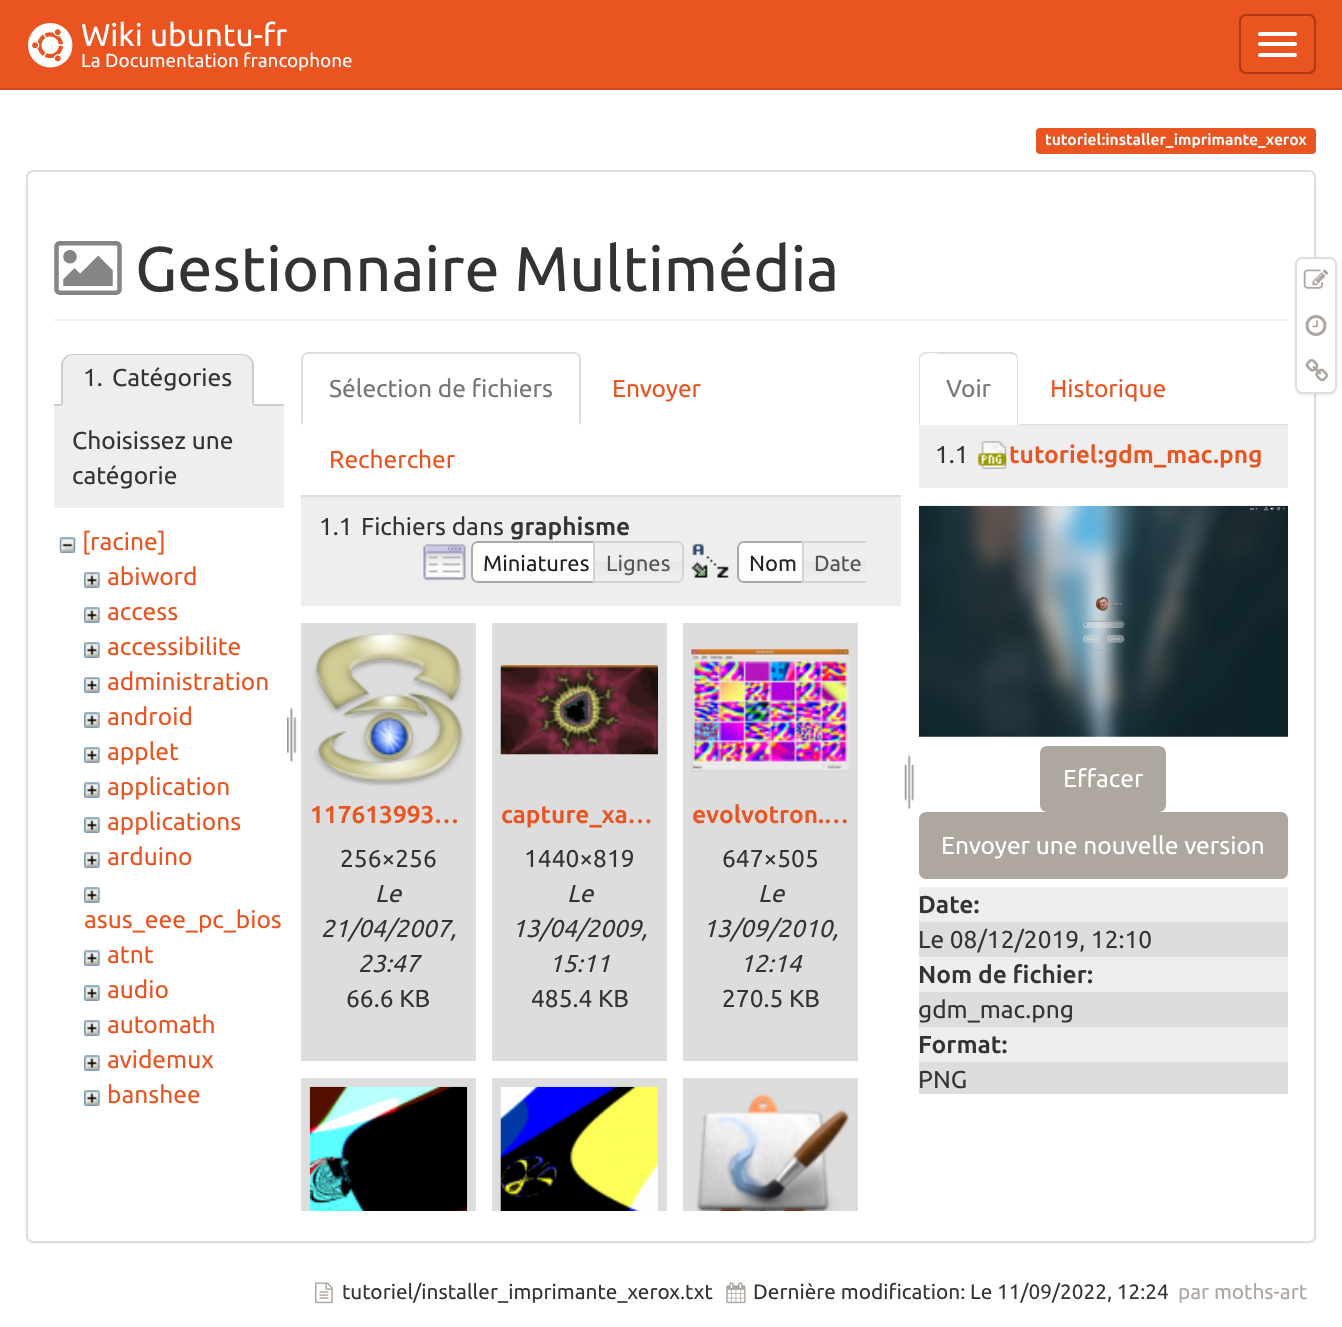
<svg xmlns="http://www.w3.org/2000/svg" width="1342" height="1327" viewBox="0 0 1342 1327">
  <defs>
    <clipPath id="clip1"><rect x="410" y="541" width="456" height="51"/></clipPath>
  </defs>
  <rect width="100%" height="100%" fill="rgb(255,255,255)"/>
  <rect x="0" y="0" width="1342" height="88" fill="rgb(233,84,32)"/>
  <rect x="0" y="88" width="1342" height="2" fill="rgb(211,70,21)"/>
  <image x="28" y="23" width="45" height="45" href="pic1.png"/>
  <text x="81" y="46" font-family="Ubuntu" font-size="31.5" fill="rgb(255,255,255)">Wiki ubuntu-fr</text>
  <text x="81" y="67" font-family="Ubuntu" font-size="18.9" fill="rgb(255,255,255)">La Documentation francophone</text>
  <rect x="1240" y="15" width="75" height="58" rx="6" fill="none" stroke="rgb(172,57,17)" stroke-width="2"/>
  <rect x="1258" y="32" width="39" height="4" rx="2" fill="rgb(255,255,255)"/>
  <rect x="1258" y="42" width="39" height="4" rx="2" fill="rgb(255,255,255)"/>
  <rect x="1258" y="53" width="39" height="4" rx="2" fill="rgb(255,255,255)"/>
  <rect x="1036" y="128" width="280" height="26" rx="4" fill="rgb(233,84,32)"/>
  <text x="1045" y="145" font-family="Ubuntu" font-size="15.6" font-weight="bold" fill="rgb(255,255,255)">tutoriel:installer_imprimante_xerox</text>
  <rect x="26" y="172" width="1290" height="1072" rx="7" fill="rgba(0,0,0,0.05)" filter="blur(1px)"/>
  <rect x="27" y="171" width="1288" height="1071" rx="6" fill="rgb(255,255,255)" stroke="rgb(221,221,221)" stroke-width="2"/>
  <rect x="54" y="319" width="1234" height="2" fill="rgb(238,238,238)"/>
  <image x="54" y="241" width="68" height="54" href="pic2.png"/>
  <text x="135" y="291" font-family="Ubuntu" font-size="63" fill="rgb(51,51,51)">Gestionnaire Multimédia</text>
  <rect x="54" y="404" width="230" height="2" fill="rgb(204,204,204)"/>
  <path d="M73 354H242C248.5 354 254 359.5 254 366V406H61V366C61 359.5 66.5 354 73 354Z" fill="rgb(238,238,238)"/>
  <path d="M74 354C71 354 67 355 65 357L66 358C68 356 71 355 74 355H242C245 355 247 356 249 358L250 357C248 355 245 354 242 354Z" fill="rgb(204,204,204)"/>
  <path d="M250 357C252 359 253 361 254 364V406L252 404V366C252 363 251 360 249 358Z" fill="rgb(204,204,204)"/>
  <path d="M254 406L252 404H63L61 406Z" fill="rgb(238,238,238)"/>
  <path d="M61 406L63 404V366C63 363 64 360 66 358L65 357C63 359 62 361 61 364Z" fill="rgb(204,204,204)"/>
  <g font-family="Ubuntu" font-size="24.5" fill="rgb(51,51,51)">
    <text x="83" y="386">1.</text>
    <text x="112" y="386">Catégories</text>
  </g>
  <rect x="54" y="406" width="230" height="102" fill="rgb(238,238,238)"/>
  <g font-family="Ubuntu" font-size="24.5" fill="rgb(51,51,51)">
    <text>
      <tspan x="72" y="449">Choisissez une</tspan>
      <tspan x="72" y="484">catégorie</tspan>
    </text>
  </g>
  <image x="59" y="537" width="17" height="16" href="pic3.png"/>
  <text x="82" y="550" font-family="Ubuntu" font-size="24.5" fill="rgb(233,84,32)">[racine]</text>
  <image x="84" y="572" width="16" height="16" href="pic4.png"/>
  <text x="107" y="585" font-family="Ubuntu" font-size="24.5" fill="rgb(233,84,32)">abiword</text>
  <image x="84" y="607" width="16" height="16" href="pic4.png"/>
  <text x="107" y="620" font-family="Ubuntu" font-size="24.5" fill="rgb(233,84,32)">access</text>
  <image x="84" y="642" width="16" height="16" href="pic4.png"/>
  <text x="107" y="655" font-family="Ubuntu" font-size="24.5" fill="rgb(233,84,32)">accessibilite</text>
  <image x="84" y="677" width="16" height="16" href="pic4.png"/>
  <text x="107" y="690" font-family="Ubuntu" font-size="24.5" fill="rgb(233,84,32)">administration</text>
  <image x="84" y="712" width="16" height="16" href="pic4.png"/>
  <text x="107" y="725" font-family="Ubuntu" font-size="24.5" fill="rgb(233,84,32)">android</text>
  <image x="84" y="747" width="16" height="16" href="pic4.png"/>
  <text x="107" y="760" font-family="Ubuntu" font-size="24.5" fill="rgb(233,84,32)">applet</text>
  <image x="84" y="782" width="16" height="16" href="pic4.png"/>
  <text x="107" y="795" font-family="Ubuntu" font-size="24.5" fill="rgb(233,84,32)">application</text>
  <image x="84" y="817" width="16" height="16" href="pic4.png"/>
  <text x="107" y="830" font-family="Ubuntu" font-size="24.5" fill="rgb(233,84,32)">applications</text>
  <image x="84" y="852" width="16" height="16" href="pic4.png"/>
  <text x="107" y="865" font-family="Ubuntu" font-size="24.5" fill="rgb(233,84,32)">arduino</text>
  <image x="84" y="887" width="16" height="16" href="pic4.png"/>
  <text x="84" y="928" font-family="Ubuntu" font-size="24.5" fill="rgb(233,84,32)">asus_eee_pc_bios</text>
  <image x="84" y="950" width="16" height="16" href="pic4.png"/>
  <text x="107" y="963" font-family="Ubuntu" font-size="24.5" fill="rgb(233,84,32)">atnt</text>
  <image x="84" y="985" width="16" height="16" href="pic4.png"/>
  <text x="107" y="998" font-family="Ubuntu" font-size="24.5" fill="rgb(233,84,32)">audio</text>
  <image x="84" y="1020" width="16" height="16" href="pic4.png"/>
  <text x="107" y="1033" font-family="Ubuntu" font-size="24.5" fill="rgb(233,84,32)">automath</text>
  <image x="84" y="1055" width="16" height="16" href="pic4.png"/>
  <text x="107" y="1068" font-family="Ubuntu" font-size="24.5" fill="rgb(233,84,32)">avidemux</text>
  <image x="84" y="1090" width="16" height="16" href="pic4.png"/>
  <text x="107" y="1103" font-family="Ubuntu" font-size="24.5" fill="rgb(233,84,32)">banshee</text>
  <image x="287" y="707" width="10" height="55" href="pic5.png"/>
  <rect x="301" y="495" width="600" height="2" fill="rgb(221,221,221)"/>
  <path d="M308 352C306 352 304 353 303 354L305 355L307 354H574C575 354 577 354 577 355L579 354C578 353 576 352 574 352Z" fill="rgb(221,221,221)"/>
  <path d="M579 354C580 355 581 357 581 359V425L579 423V358L577 355Z" fill="rgb(221,221,221)"/>
  <path d="M301 359V425L303 423V358L305 355L303 354C302 355 301 357 301 359Z" fill="rgb(221,221,221)"/>
  <text x="329" y="397" font-family="Ubuntu" font-size="24.5" fill="rgb(119,119,119)">Sélection de fichiers</text>
  <g font-family="Ubuntu" font-size="24.5" fill="rgb(233,84,32)">
    <text x="612" y="397">Envoyer</text>
    <text x="329" y="468">Rechercher</text>
  </g>
  <rect x="301" y="497" width="600" height="109" fill="rgb(238,238,238)"/>
  <g font-family="Ubuntu" font-size="24.5" fill="rgb(51,51,51)">
    <text x="319" y="535">1.1</text>
    <text x="361" y="535">Fichiers dans</text>
  </g>
  <text x="510" y="535" font-family="Ubuntu" font-size="24.5" font-weight="bold" fill="rgb(51,51,51)">graphisme</text>
  <image x="423" y="543" width="43" height="38" href="pic6.png"/>
  <path d="M478 541H602V583H478C474 583 471 580 471 576V548C471 544 474 541 478 541Z" fill="rgb(255,255,255)"/>
  <image x="471" y="541" width="5" height="38" href="pic7.png"/>
  <path d="M478 542H601V582H478C474.5 582 472 579.5 472 576V548C472 544.5 474.5 542 478 542Z" fill="none" stroke="rgb(170,170,170)" stroke-width="2"/>
  <text x="483" y="571" font-family="Ubuntu" font-size="22" fill="rgb(33,33,33)">Miniatures</text>
  <image x="595" y="541" width="89" height="42" href="pic8.png"/>
  <path d="M594 542H677C680.5 542 683 544.5 683 548V576C683 579.5 680.5 582 677 582H594Z" fill="none" stroke="rgb(211,211,211)" stroke-width="2"/>
  <text x="606" y="571" font-family="Ubuntu" font-size="22" fill="rgb(85,85,85)">Lignes</text>
  <image x="691" y="543" width="38" height="35" href="pic9.png"/>
  <path d="M744 541H810V583H744C740 583 737 580 737 576V548C737 544 740 541 744 541Z" fill="rgb(255,255,255)"/>
  <image x="737" y="541" width="5" height="38" href="pic7.png"/>
  <path d="M744 542H809V582H744C740.5 582 738 579.5 738 576V548C738 544.5 740.5 542 744 542Z" fill="none" stroke="rgb(170,170,170)" stroke-width="2"/>
  <text x="749" y="571" font-family="Ubuntu" font-size="22" fill="rgb(33,33,33)">Nom</text>
  <image x="801" y="541" width="65" height="42" href="pic10.png"/>
  <g clip-path="url(#clip1)">
    <path d="M803 542H868C871.5 542 874 544.5 874 548V576C874 579.5 871.5 582 868 582H803Z" fill="none" stroke="rgb(211,211,211)" stroke-width="2"/>
  </g>
  <text x="814" y="571" font-family="Ubuntu" font-size="22" fill="rgb(85,85,85)">Date</text>
  <image x="904" y="754" width="10" height="55" href="pic11.png"/>
  <rect x="301" y="623" width="175" height="438" fill="rgb(221,221,221)"/>
  <image x="312" y="633" width="153" height="153" href="pic12.png"/>
  <text x="310" y="823" font-family="Ubuntu" font-size="24.5" font-weight="bold" fill="rgb(233,84,32)">117613993…</text>
  <text x="340" y="867" font-family="Ubuntu" font-size="24.5" fill="rgb(51,51,51)">256×256</text>
  <g font-family="Ubuntu" font-size="24.5" font-style="italic" fill="rgb(51,51,51)">
    <text x="375" y="902">Le</text>
    <text x="321" y="937">21/04/2007,</text>
    <text x="358" y="972">23:47</text>
  </g>
  <text x="346" y="1007" font-family="Ubuntu" font-size="24.5" fill="rgb(51,51,51)">66.6 KB</text>
  <rect x="492" y="623" width="175" height="438" fill="rgb(221,221,221)"/>
  <image x="500" y="665" width="158" height="90" href="pic13.png"/>
  <text x="501" y="823" font-family="Ubuntu" font-size="24.5" font-weight="bold" fill="rgb(233,84,32)">capture_xa…</text>
  <text x="524" y="867" font-family="Ubuntu" font-size="24.5" fill="rgb(51,51,51)">1440×819</text>
  <g font-family="Ubuntu" font-size="24.5" font-style="italic" fill="rgb(51,51,51)">
    <text x="567" y="902">Le</text>
    <text x="512" y="937">13/04/2009,</text>
    <text x="549" y="972">15:11</text>
  </g>
  <text x="531" y="1007" font-family="Ubuntu" font-size="24.5" fill="rgb(51,51,51)">485.4 KB</text>
  <rect x="683" y="623" width="175" height="438" fill="rgb(221,221,221)"/>
  <image x="691" y="649" width="158" height="123" href="pic14.png"/>
  <text x="692" y="823" font-family="Ubuntu" font-size="24.5" font-weight="bold" fill="rgb(233,84,32)">evolvotron.…</text>
  <text x="722" y="867" font-family="Ubuntu" font-size="24.5" fill="rgb(51,51,51)">647×505</text>
  <g font-family="Ubuntu" font-size="24.5" font-style="italic" fill="rgb(51,51,51)">
    <text x="758" y="902">Le</text>
    <text x="703" y="937">13/09/2010,</text>
    <text x="740" y="972">12:14</text>
  </g>
  <text x="722" y="1007" font-family="Ubuntu" font-size="24.5" fill="rgb(51,51,51)">270.5 KB</text>
  <rect x="301" y="1078" width="175" height="133" fill="rgb(221,221,221)"/>
  <image x="309" y="1086" width="159" height="125" href="pic15.png"/>
  <rect x="492" y="1078" width="175" height="133" fill="rgb(221,221,221)"/>
  <image x="500" y="1086" width="158" height="125" href="pic16.png"/>
  <rect x="683" y="1078" width="175" height="133" fill="rgb(221,221,221)"/>
  <image x="696" y="1093" width="153" height="118" href="pic17.png"/>
  <rect x="1019" y="424" width="269" height="1" fill="rgb(221,221,221)"/>
  <path d="M926 352C924 352 922 353 921 354L922 355C927 352 939 354 940 354H1012L1015 355L1016 354C1015 353 1014 352 1012 352Z" fill="rgb(221,221,221)"/>
  <path d="M1018 425V359C1018 357 1017 355 1016 354L1015 355L1017 358V424Z" fill="rgb(221,221,221)"/>
  <path d="M921 354C920 355 919 357 919 359V425L920 424V358L922 355Z" fill="rgb(221,221,221)"/>
  <text x="946" y="397" font-family="Ubuntu" font-size="24.5" fill="rgb(119,119,119)">Voir</text>
  <text x="1050" y="397" font-family="Ubuntu" font-size="24.5" fill="rgb(233,84,32)">Historique</text>
  <rect x="919" y="425" width="369" height="63" fill="rgb(238,238,238)"/>
  <text x="935" y="463" font-family="Ubuntu" font-size="24.5" fill="rgb(51,51,51)">1.1</text>
  <image x="978" y="441" width="29" height="28" href="pic18.png"/>
  <text x="1009" y="463" font-family="Ubuntu" font-size="24.5" font-weight="bold" fill="rgb(233,84,32)">tutoriel:gdm_mac.png</text>
  <image x="918" y="505" width="370" height="232" href="pic19.png"/>
  <rect x="1041" y="747" width="124" height="64" rx="6" fill="rgb(174,167,159)" stroke="rgb(174,167,159)" stroke-width="2"/>
  <text x="1063" y="787" font-family="Ubuntu" font-size="24.5" fill="rgb(255,255,255)">Effacer</text>
  <rect x="920" y="813" width="367" height="65" rx="6" fill="rgb(174,167,159)" stroke="rgb(174,167,159)" stroke-width="2"/>
  <text x="941" y="854" font-family="Ubuntu" font-size="24.5" fill="rgb(255,255,255)">Envoyer une nouvelle version</text>
  <rect x="919" y="887" width="369" height="35" fill="rgb(238,238,238)"/>
  <text x="918" y="913" font-family="Ubuntu" font-size="24.5" font-weight="bold" fill="rgb(51,51,51)">Date:</text>
  <rect x="919" y="922" width="369" height="35" fill="rgb(221,221,221)"/>
  <text x="918" y="948" font-family="Ubuntu" font-size="24.5" fill="rgb(51,51,51)">Le 08/12/2019, 12:10</text>
  <rect x="919" y="957" width="369" height="35" fill="rgb(238,238,238)"/>
  <text x="918" y="983" font-family="Ubuntu" font-size="24.5" font-weight="bold" fill="rgb(51,51,51)">Nom de fichier:</text>
  <rect x="919" y="992" width="369" height="35" fill="rgb(221,221,221)"/>
  <text x="918" y="1018" font-family="Ubuntu" font-size="24.5" fill="rgb(51,51,51)">gdm_mac.png</text>
  <rect x="919" y="1027" width="369" height="35" fill="rgb(238,238,238)"/>
  <text x="918" y="1053" font-family="Ubuntu" font-size="24.5" font-weight="bold" fill="rgb(51,51,51)">Format:</text>
  <rect x="919" y="1062" width="369" height="32" fill="rgb(221,221,221)"/>
  <text x="918" y="1088" font-family="Ubuntu" font-size="24.5" fill="rgb(51,51,51)">PNG</text>
  <rect x="1295" y="259" width="42" height="137" rx="7" fill="rgba(0,0,0,0.05)" filter="blur(1px)"/>
  <rect x="1296" y="258" width="40" height="135" rx="6" fill="rgb(255,255,255)" stroke="rgb(221,221,221)" stroke-width="2"/>
  <image x="1303" y="269" width="26" height="20" href="pic20.png"/>
  <image x="1305" y="315" width="22" height="21" href="pic21.png"/>
  <image x="1305" y="359" width="23" height="23" href="pic22.png"/>
  <image x="315" y="1282" width="18" height="22" href="pic23.png"/>
  <text x="342" y="1299" font-family="Ubuntu" font-size="20.8" fill="rgb(51,51,51)">tutoriel/installer_imprimante_xerox.txt</text>
  <image x="726" y="1282" width="20" height="22" href="pic24.png"/>
  <text x="753" y="1299" font-family="Ubuntu" font-size="20.8" fill="rgb(51,51,51)">Dernière modification: Le 11/09/2022, 12:24</text>
  <text x="1178" y="1299" font-family="Ubuntu" font-size="20.8" fill="rgb(174,167,159)">par moths-art</text>
</svg>
